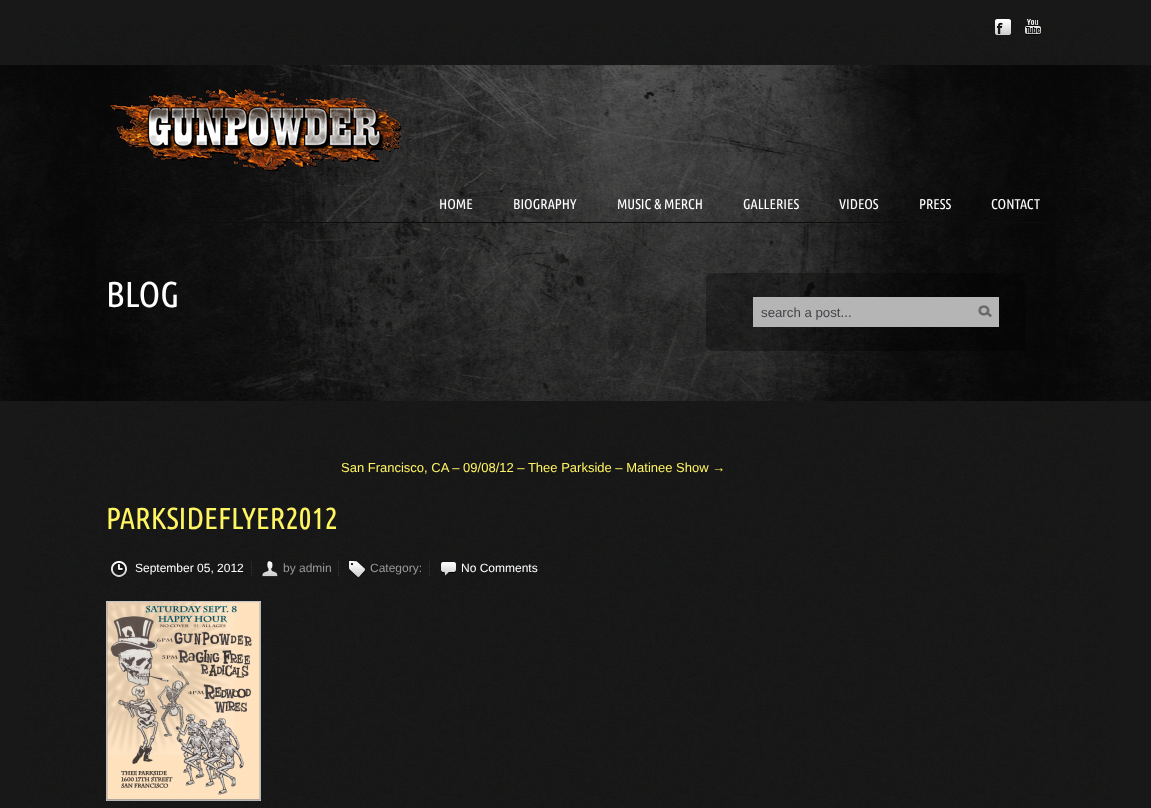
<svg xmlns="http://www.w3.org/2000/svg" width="1151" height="808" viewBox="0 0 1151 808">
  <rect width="100%" height="100%" fill="rgb(24,24,24)"/>
  <image x="23" y="23" width="1092" height="785" href="pic1.png"/>
  <image x="995" y="19" width="16" height="16" href="pic2.png"/>
  <image x="1025" y="19" width="16" height="16" href="pic3.png"/>
  <image x="0" y="65" width="1151" height="336" href="pic4.png"/>
  <image x="110" y="89" width="291" height="82" href="pic5.png"/>
  <g font-family="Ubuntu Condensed" font-size="14.25" fill="rgb(255,255,255)">
    <text x="439" y="209">HOME</text>
    <text x="513" y="209">BIOGRAPHY</text>
    <text x="617" y="209">MUSIC &amp; MERCH</text>
    <text x="743" y="209">GALLERIES</text>
    <text x="839" y="209">VIDEOS</text>
    <text x="919" y="209">PRESS</text>
    <text x="991" y="209">CONTACT</text>
  </g>
  <rect x="106" y="222" width="940" height="1" fill="rgb(13,13,13)"/>
  <text x="106" y="307" font-family="Ubuntu Condensed" font-size="36" fill="rgb(255,255,255)">BLOG</text>
  <image x="706" y="273" width="319" height="78" href="pic6.png"/>
  <rect x="753" y="297" width="246" height="30" fill="rgb(181,181,181)"/>
  <text x="761" y="317" font-family="Liberation Sans" font-size="13.25" fill="rgb(67,68,72)">search a post...</text>
  <image x="978" y="305" width="14" height="13" href="pic7.png"/>
  <text x="341" y="472" font-family="Liberation Sans" font-size="13" fill="rgb(255,244,97)">San Francisco, CA – 09/08/12 – Thee Parkside – Matinee Show →</text>
  <text x="106" y="529" font-family="Ubuntu Condensed" font-size="30.5" fill="rgb(255,244,97)">PARKSIDEFLYER2012</text>
  <image x="111" y="561" width="16" height="16" href="pic8.png"/>
  <text x="135" y="572" font-family="Liberation Sans" font-size="12" fill="rgb(255,255,255)">September 05, 2012</text>
  <path d="M251.5 561V577" fill="none" stroke="rgb(51,51,51)" stroke-dasharray="1 1"/>
  <image x="262" y="561" width="16" height="16" href="pic9.png"/>
  <text x="283" y="572" font-family="Liberation Sans" font-size="12" fill="rgb(153,153,153)">by admin</text>
  <path d="M338.5 561V577" fill="none" stroke="rgb(51,51,51)" stroke-dasharray="1 1"/>
  <image x="349" y="561" width="16" height="16" href="pic10.png"/>
  <text x="370" y="572" font-family="Liberation Sans" font-size="12" fill="rgb(153,153,153)">Category:</text>
  <path d="M429.5 561V577" fill="none" stroke="rgb(51,51,51)" stroke-dasharray="1 1"/>
  <image x="441" y="562" width="15" height="15" href="pic11.png"/>
  <text x="461" y="572" font-family="Liberation Sans" font-size="12" fill="rgb(255,255,255)">No Comments</text>
  <image x="106" y="601" width="155" height="200" href="pic12.png"/>
</svg>
